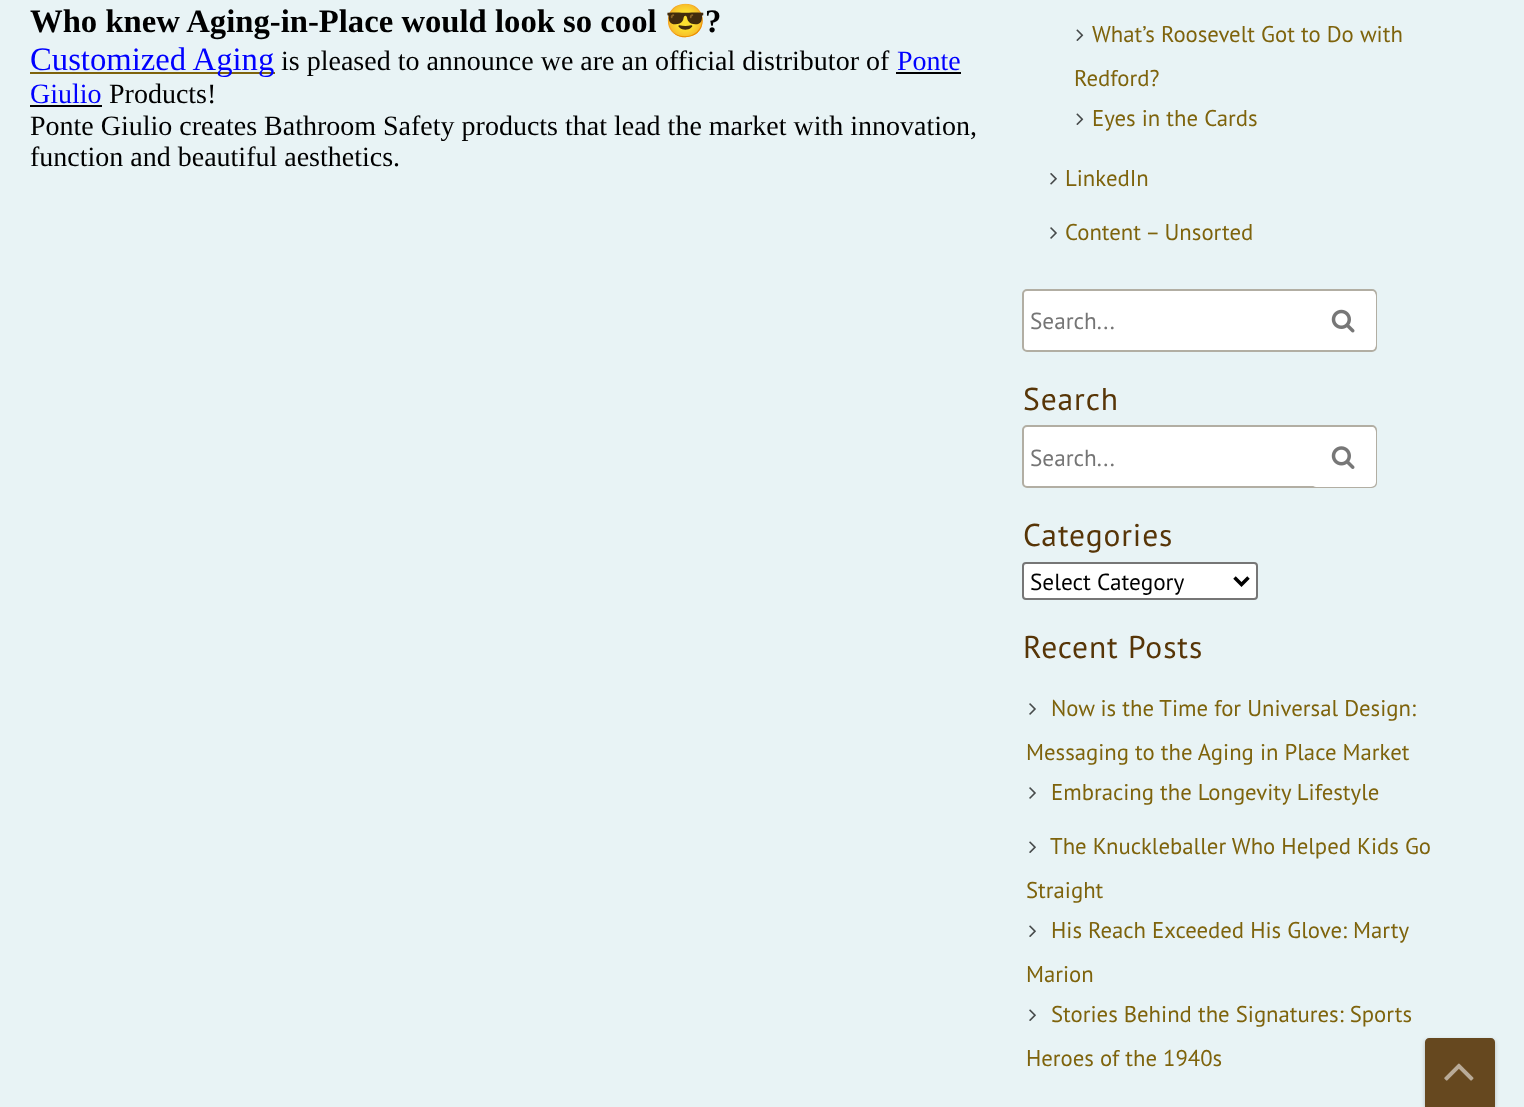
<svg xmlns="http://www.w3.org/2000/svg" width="1524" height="1107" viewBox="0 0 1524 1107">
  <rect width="100%" height="100%" fill="rgb(232,243,245)"/>
  <text x="30" y="32" font-family="Liberation Serif" font-size="32.7" font-weight="bold" fill="rgb(0,0,0)">Who knew Aging-in-Place would look so cool</text>
  <text x="665" y="32" font-family="Noto Color Emoji" font-size="32.7" font-weight="bold" fill="rgb(0,0,0)">😎</text>
  <text x="705" y="32" font-family="Liberation Serif" font-size="32.7" font-weight="bold" fill="rgb(0,0,0)">?</text>
  <rect x="30" y="72" width="245" height="2" fill="rgb(126,99,12)"/>
  <text x="30" y="70" font-family="Liberation Serif" font-size="32.7" fill="rgb(0,0,255)">Customized Aging</text>
  <text x="281" y="70" font-family="Liberation Serif" font-size="28" fill="rgb(0,0,0)">is pleased to announce we are an official distributor of</text>
  <text x="897" y="70" font-family="Liberation Serif" font-size="28" fill="rgb(0,0,255)">Ponte</text>
  <rect x="896" y="72" width="65" height="2" fill="rgb(0,0,0)"/>
  <text x="30" y="103" font-family="Liberation Serif" font-size="28" fill="rgb(0,0,255)">Giulio</text>
  <rect x="30" y="105" width="72" height="2" fill="rgb(0,0,0)"/>
  <g font-family="Liberation Serif" font-size="28" fill="rgb(0,0,0)">
    <text x="109" y="103">Products!</text>
    <text>
      <tspan x="30" y="135">Ponte Giulio creates Bathroom Safety products that lead the market with innovation,</tspan>
      <tspan x="30" y="166">function and beautiful aesthetics.</tspan>
    </text>
  </g>
  <image x="1076" y="29" width="8" height="12" href="pic1.png"/>
  <g font-family="PT Sans" font-size="22.75" fill="rgb(126,99,12)">
    <text x="1092" y="42">What’s Roosevelt Got to Do with</text>
    <text x="1074" y="86">Redford?</text>
  </g>
  <image x="1076" y="113" width="8" height="12" href="pic1.png"/>
  <text x="1092" y="126" font-family="PT Sans" font-size="22.75" fill="rgb(126,99,12)">Eyes in the Cards</text>
  <image x="1050" y="173" width="7" height="12" href="pic2.png"/>
  <text x="1065" y="186" font-family="PT Sans" font-size="22.75" fill="rgb(126,99,12)">LinkedIn</text>
  <image x="1050" y="227" width="7" height="12" href="pic3.png"/>
  <text x="1065" y="240" font-family="PT Sans" font-size="22.75" fill="rgb(126,99,12)">Content – Unsorted</text>
  <rect x="1023" y="290" width="353" height="61" rx="4" fill="rgb(255,255,255)" stroke="rgb(178,174,163)" stroke-width="2"/>
  <text x="1030" y="329" font-family="PT Sans" font-size="23.25" fill="rgb(117,117,117)">Search...</text>
  <rect x="1311" y="291" width="65" height="59" rx="5" fill="rgb(255,255,255)"/>
  <image x="1331" y="309" width="24" height="24" href="pic4.png"/>
  <text x="1023" y="410" font-family="PT Sans" font-size="31.5" letter-spacing="0.9" fill="rgb(87,53,7)">Search</text>
  <rect x="1023" y="426" width="353" height="61" rx="4" fill="rgb(255,255,255)" stroke="rgb(178,174,163)" stroke-width="2"/>
  <text x="1030" y="466" font-family="PT Sans" font-size="23.25" fill="rgb(117,117,117)">Search...</text>
  <rect x="1311" y="427" width="65" height="60" rx="5" fill="rgb(255,255,255)"/>
  <image x="1331" y="446" width="24" height="23" href="pic5.png"/>
  <text x="1023" y="546" font-family="PT Sans" font-size="31.5" letter-spacing="0.9" fill="rgb(87,53,7)">Categories</text>
  <rect x="1023" y="563" width="234" height="36" rx="3" fill="rgb(255,255,255)" stroke="rgb(118,118,118)" stroke-width="2"/>
  <path d="M1234.5 577.5L1241.5 584.5L1248.5 577.5" fill="none" stroke="rgb(0,0,0)" stroke-width="3.5"/>
  <text x="1030" y="590" font-family="PT Sans" font-size="23.25" fill="rgb(0,0,0)">Select Category</text>
  <text x="1023" y="658" font-family="PT Sans" font-size="31.5" letter-spacing="0.9" fill="rgb(87,53,7)">Recent Posts</text>
  <image x="1029" y="703" width="7" height="12" href="pic3.png"/>
  <g font-family="PT Sans" font-size="22.75" fill="rgb(126,99,12)">
    <text x="1051" y="716">Now is the Time for Universal Design:</text>
    <text x="1026" y="760">Messaging to the Aging in Place Market</text>
  </g>
  <image x="1029" y="787" width="7" height="12" href="pic3.png"/>
  <text x="1051" y="800" font-family="PT Sans" font-size="22.75" fill="rgb(126,99,12)">Embracing the Longevity Lifestyle</text>
  <image x="1029" y="841" width="7" height="12" href="pic6.png"/>
  <g font-family="PT Sans" font-size="22.75" fill="rgb(126,99,12)">
    <text x="1050" y="854">The Knuckleballer Who Helped Kids Go</text>
    <text x="1026" y="898">Straight</text>
  </g>
  <image x="1029" y="925" width="7" height="12" href="pic6.png"/>
  <g font-family="PT Sans" font-size="22.75" fill="rgb(126,99,12)">
    <text x="1051" y="938">His Reach Exceeded His Glove: Marty</text>
    <text x="1026" y="982">Marion</text>
  </g>
  <image x="1029" y="1009" width="7" height="12" href="pic6.png"/>
  <g font-family="PT Sans" font-size="22.75" fill="rgb(126,99,12)">
    <text x="1051" y="1022">Stories Behind the Signatures: Sports</text>
    <text x="1026" y="1066">Heroes of the 1940s</text>
  </g>
  <rect x="1425" y="1040" width="70" height="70" rx="4" fill="rgba(23,24,25,0.25)" filter="blur(2px)"/>
  <path d="M1429 1038H1491C1493 1038 1495 1040 1495 1042V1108H1425V1042C1425 1040 1427 1038 1429 1038Z" fill="rgb(102,72,31)"/>
  <image x="1444" y="1063" width="30" height="18" href="pic7.png"/>
</svg>
